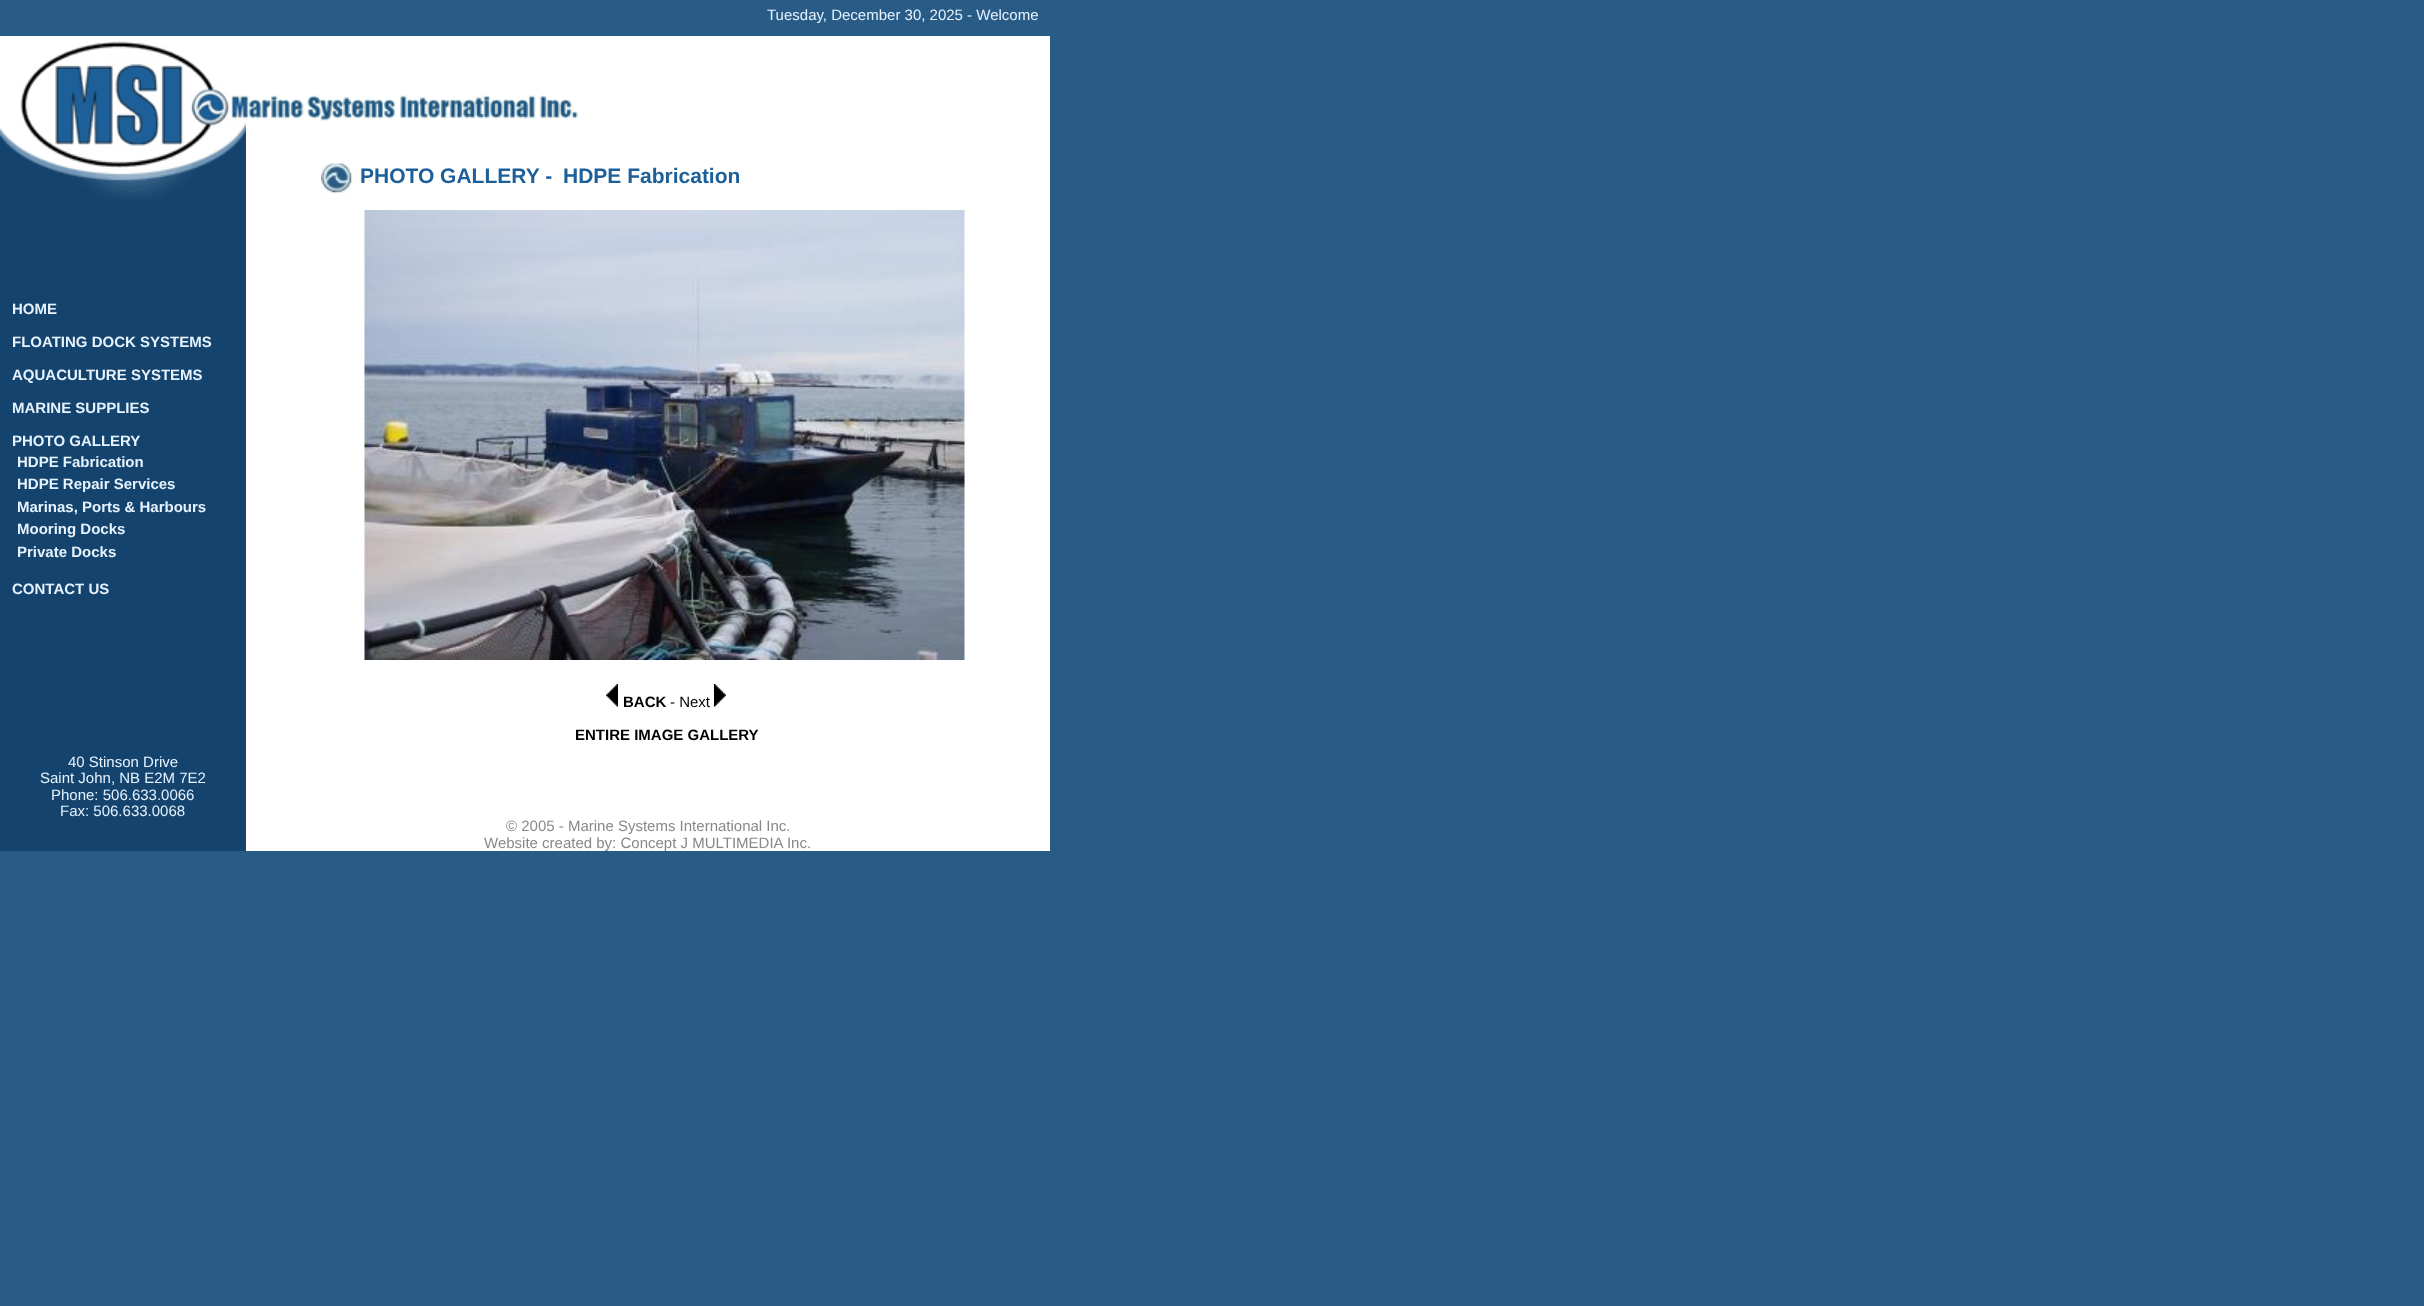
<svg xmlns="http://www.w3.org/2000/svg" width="2424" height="1306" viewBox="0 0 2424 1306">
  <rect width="100%" height="100%" fill="rgb(40,91,134)"/>
  <text x="767" y="20" font-family="Liberation Sans" font-size="15" fill="rgb(230,243,255)">Tuesday, December 30, 2025 - Welcome</text>
  <rect x="0" y="200" width="246" height="651" fill="rgb(20,67,109)"/>
  <image x="0" y="36" width="246" height="164" href="pic1.png"/>
  <g font-family="Liberation Sans" font-size="15" font-weight="bold" fill="rgb(230,243,255)">
    <text x="12" y="314">HOME</text>
    <text x="12" y="347">FLOATING DOCK SYSTEMS</text>
    <text x="12" y="380">AQUACULTURE SYSTEMS</text>
    <text x="12" y="413">MARINE SUPPLIES</text>
    <text x="12" y="446">PHOTO GALLERY</text>
    <text>
      <tspan x="17" y="467">HDPE Fabrication</tspan>
      <tspan x="17" y="489">HDPE Repair Services</tspan>
      <tspan x="17" y="512">Marinas, Ports &amp; Harbours</tspan>
      <tspan x="17" y="534">Mooring Docks</tspan>
      <tspan x="17" y="557">Private Docks</tspan>
    </text>
    <text x="12" y="594">CONTACT US</text>
  </g>
  <rect x="246" y="36" width="804" height="815" fill="rgb(255,255,255)"/>
  <image x="246" y="95" width="332" height="26" href="pic2.png"/>
  <image x="321" y="163" width="32" height="31" href="pic3.png"/>
  <g font-family="Liberation Sans" font-size="21" font-weight="bold" fill="rgb(29,95,153)">
    <text x="360" y="183">PHOTO GALLERY -</text>
    <text x="563" y="183">HDPE Fabrication</text>
  </g>
  <image x="364" y="210" width="601" height="450" href="pic4.png"/>
  <image x="606" y="684" width="12" height="23" href="pic5.png"/>
  <text x="623" y="707" font-family="Liberation Sans" font-size="15" font-weight="bold" fill="rgb(0,0,0)">BACK</text>
  <text x="670" y="707" font-family="Liberation Sans" font-size="15" fill="rgb(0,0,0)">- Next</text>
  <image x="714" y="684" width="12" height="23" href="pic6.png"/>
  <text x="575" y="740" font-family="Liberation Sans" font-size="15" font-weight="bold" fill="rgb(0,0,0)">ENTIRE IMAGE GALLERY</text>
  <g font-family="Liberation Sans" font-size="15" fill="rgb(136,136,136)">
    <text x="506" y="831">© 2005 - Marine Systems International Inc.</text>
    <text x="484" y="848">Website created by: Concept J MULTIMEDIA Inc.</text>
  </g>
  <g font-family="Liberation Sans" font-size="15" fill="rgb(230,243,255)">
    <text x="68" y="767">40 Stinson Drive</text>
    <text x="40" y="783">Saint John, NB E2M 7E2</text>
    <text x="51" y="800">Phone: 506.633.0066</text>
    <text x="60" y="816">Fax: 506.633.0068</text>
  </g>
</svg>
